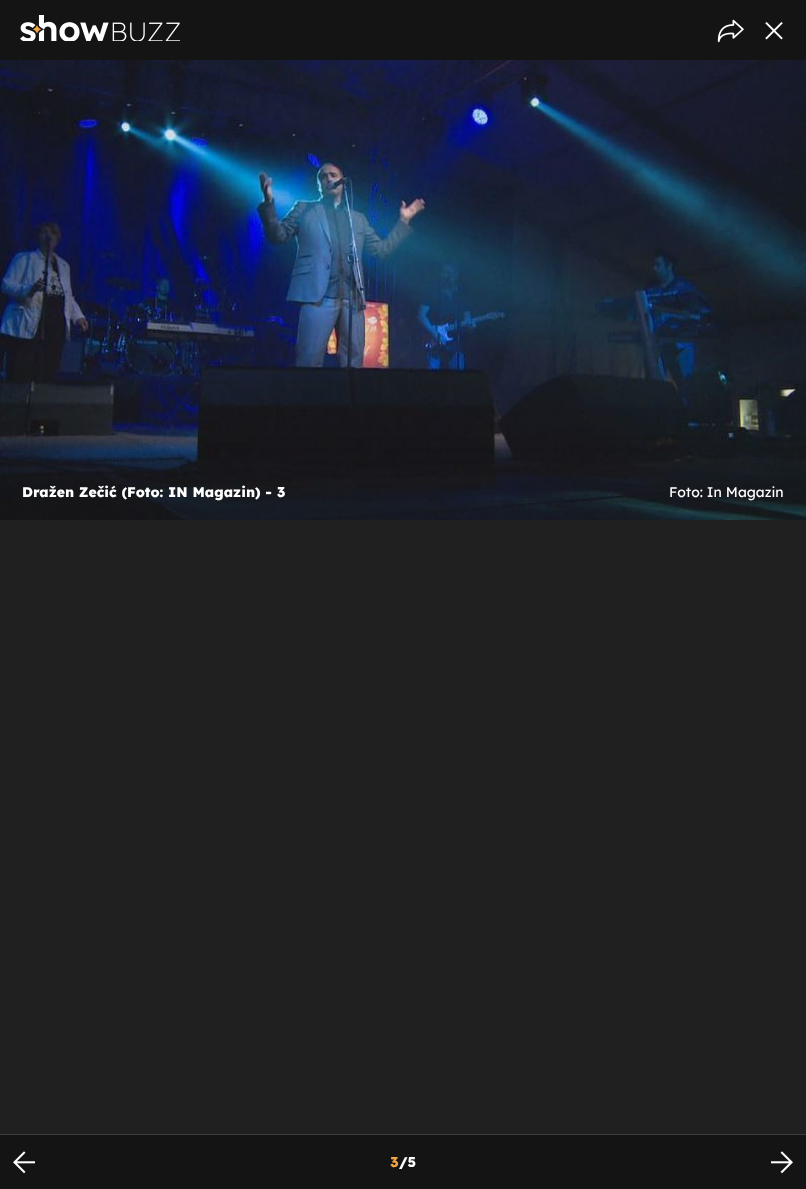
<svg xmlns="http://www.w3.org/2000/svg" width="806" height="1189" viewBox="0 0 806 1189">
  <rect width="100%" height="100%" fill="rgb(32,32,32)"/>
  <rect x="0" y="0" width="806" height="60" fill="rgb(20,20,20)"/>
  <image x="20" y="15" width="160" height="26" href="pic1.png"/>
  <image x="717" y="19" width="27" height="24" href="pic2.png"/>
  <image x="765" y="22" width="18" height="18" href="pic3.png"/>
  <image x="0" y="60" width="806" height="460" href="pic4.png"/>
  <text x="22" y="497" font-family="Lexend" font-size="14" font-weight="800" fill="rgb(255,255,255)">Dražen Zečić (Foto: IN Magazin) - 3</text>
  <text x="669" y="497" font-family="Lexend" font-size="14" fill="rgb(255,255,255)">Foto: In Magazin</text>
  <rect x="0" y="1135" width="806" height="54" fill="rgb(20,20,20)"/>
  <rect x="0" y="1134" width="806" height="1" fill="rgb(61,61,61)"/>
  <image x="13" y="1151" width="22" height="23" href="pic5.png"/>
  <text x="390" y="1167" font-family="Lexend" font-size="14" font-weight="800" fill="rgb(242,164,68)">3</text>
  <text x="399" y="1167" font-family="Lexend" font-size="14" font-weight="800" fill="rgb(255,255,255)">/5</text>
  <image x="771" y="1151" width="22" height="23" href="pic6.png"/>
</svg>
